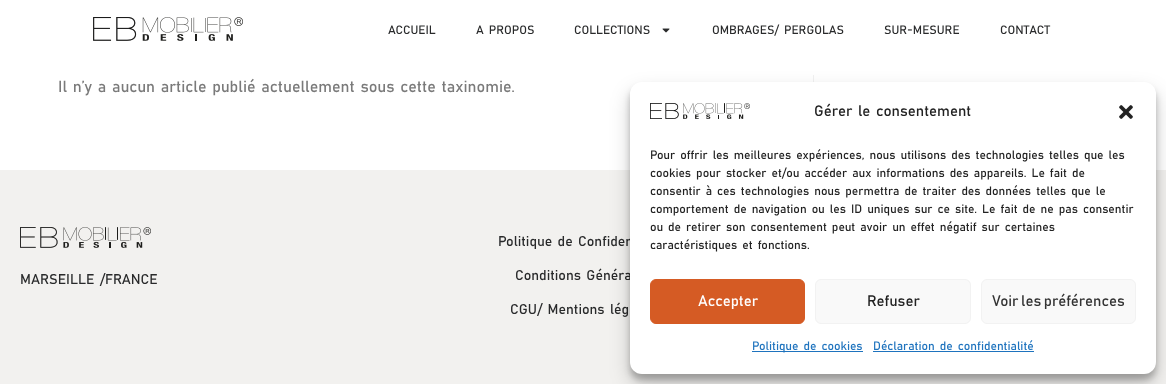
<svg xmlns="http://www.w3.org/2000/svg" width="1166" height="384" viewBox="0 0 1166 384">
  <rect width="100%" height="100%" fill="rgb(255,255,255)"/>
  <image x="93" y="17" width="150" height="24" href="pic1.png"/>
  <g font-family="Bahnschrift" font-size="12" fill="rgb(41,42,43)">
    <text x="388" y="34">ACCUEIL</text>
    <text x="476" y="34" word-spacing="3">A PROPOS</text>
    <text x="574" y="34">COLLECTIONS</text>
  </g>
  <image x="662" y="28" width="8" height="5" href="pic2.png"/>
  <g font-family="Bahnschrift" font-size="12" fill="rgb(41,42,43)">
    <text x="712" y="34" word-spacing="3">OMBRAGES/ PERGOLAS</text>
    <text x="884" y="34">SUR-MESURE</text>
    <text x="1000" y="34">CONTACT</text>
  </g>
  <rect x="813" y="75" width="1" height="7" fill="rgb(241,241,241)"/>
  <text x="58" y="92" word-spacing="3" font-family="Bahnschrift" font-size="16" fill="rgb(122,122,122)">Il n’y a aucun article publié actuellement sous cette taxinomie.</text>
  <rect x="0" y="170" width="1166" height="214" fill="rgb(242,241,239)"/>
  <image x="20" y="227" width="131" height="21" href="pic3.png"/>
  <g font-family="Bahnschrift" font-size="14" fill="rgb(41,42,43)">
    <text x="20" y="284" word-spacing="3">MARSEILLE /FRANCE</text>
    <text x="498" y="246" word-spacing="3">Politique de Confiden</text>
    <text x="515" y="280" word-spacing="3">Conditions Généra</text>
    <text x="510" y="314" word-spacing="3">CGU/ Mentions lég</text>
  </g>
  <rect x="630" y="88" width="526" height="292" rx="12" fill="rgba(0,0,0,0.23)" filter="blur(3px)"/>
  <rect x="630" y="92" width="526" height="292" rx="12" fill="rgba(0,0,0,0.19)" filter="blur(10px)"/>
  <rect x="630" y="82" width="526" height="292" rx="12" fill="rgb(255,255,255)"/>
  <image x="650" y="103" width="100" height="16" href="pic4.png"/>
  <text x="814" y="116" word-spacing="3" font-family="Bahnschrift" font-size="15" fill="rgb(34,34,34)">Gérer le consentement</text>
  <image x="1119" y="105" width="14" height="14" href="pic5.png"/>
  <g font-family="Bahnschrift" font-size="12" fill="rgb(34,34,34)">
    <text>
      <tspan x="650" y="159" word-spacing="3">Pour offrir les meilleures expériences, nous utilisons des technologies telles que les</tspan>
      <tspan x="650" y="177" word-spacing="3">cookies pour stocker et/ou accéder aux informations des appareils. Le fait de</tspan>
      <tspan x="650" y="195" word-spacing="3">consentir à ces technologies nous permettra de traiter des données telles que le</tspan>
      <tspan x="650" y="213" word-spacing="3">comportement de navigation ou les ID uniques sur ce site. Le fait de ne pas consentir</tspan>
      <tspan x="650" y="231" word-spacing="3">ou de retirer son consentement peut avoir un effet négatif sur certaines</tspan>
      <tspan x="650" y="249" word-spacing="3">caractéristiques et fonctions.</tspan>
    </text>
  </g>
  <rect x="650.5" y="279.5" width="154" height="44" rx="5.5" fill="rgb(213,91,36)" stroke="rgb(213,91,36)"/>
  <text x="698" y="306" font-family="Bahnschrift" font-size="15" fill="rgb(255,255,255)">Accepter</text>
  <rect x="815.5" y="279.5" width="155" height="44" rx="5.5" fill="rgb(249,249,249)" stroke="rgb(242,242,242)"/>
  <text x="867" y="306" font-family="Bahnschrift" font-size="15" fill="rgb(34,34,34)">Refuser</text>
  <rect x="981.5" y="279.5" width="154" height="44" rx="5.5" fill="rgb(249,249,249)" stroke="rgb(242,242,242)"/>
  <text x="992" y="306" font-family="Bahnschrift" font-size="15" fill="rgb(51,51,51)">Voir les préférences</text>
  <rect x="752" y="351" width="111" height="1" fill="rgb(30,115,190)"/>
  <g font-family="Bahnschrift" font-size="12" fill="rgb(30,115,190)">
    <text x="752" y="350" word-spacing="3">Politique de cookies</text>
    <text x="873" y="350" word-spacing="3">Déclaration de confidentialité</text>
  </g>
  <rect x="873" y="351" width="161" height="1" fill="rgb(30,115,190)"/>
</svg>
